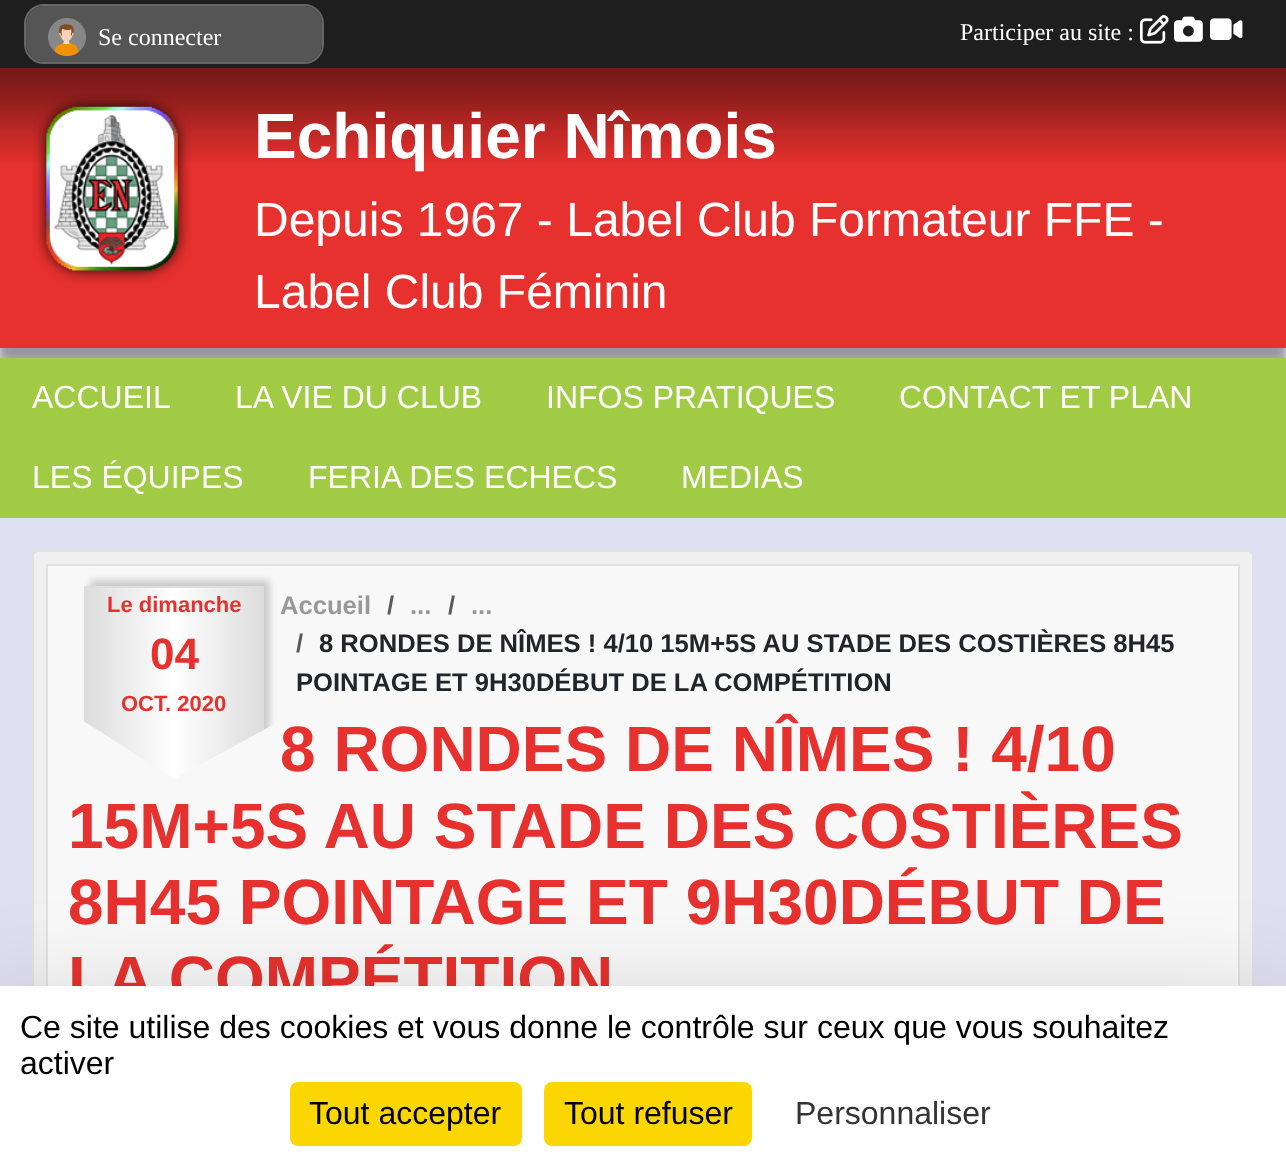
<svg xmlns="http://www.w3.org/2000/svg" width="1286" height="1166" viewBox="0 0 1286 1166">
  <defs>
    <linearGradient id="g1" gradientUnits="userSpaceOnUse" x1="-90" y1="684" x2="86" y2="684"><stop offset="0" stop-color="rgb(221,221,221)"/><stop offset="0.5" stop-color="rgb(255,255,255)"/><stop offset="1" stop-color="rgb(221,221,221)"/></linearGradient>
    <linearGradient id="g2" gradientUnits="userSpaceOnUse" x1="86" y1="684" x2="262" y2="684"><stop offset="0" stop-color="rgb(221,221,221)"/><stop offset="0.5" stop-color="rgb(255,255,255)"/><stop offset="1" stop-color="rgb(221,221,221)"/></linearGradient>
    <linearGradient id="g3" gradientUnits="userSpaceOnUse" x1="262" y1="684" x2="438" y2="684"><stop offset="0" stop-color="rgb(221,221,221)"/><stop offset="0.5" stop-color="rgb(255,255,255)"/><stop offset="1" stop-color="rgb(221,221,221)"/></linearGradient>
  </defs>
  <rect width="100%" height="100%" fill="rgb(223,223,242)"/>
  <rect x="0" y="82" width="1286" height="280" fill="rgba(80,80,80,0.5)" filter="blur(5px)"/>
  <rect x="0" y="0" width="1286" height="68" fill="rgb(30,30,30)"/>
  <rect x="25" y="5" width="298" height="58" rx="19" fill="none" stroke="rgb(102,102,102)" stroke-width="2"/>
  <rect x="26" y="6" width="296" height="56" rx="18" fill="rgb(85,85,85)"/>
  <image x="48" y="18" width="38" height="38" href="pic1.png"/>
  <g font-family="Liberation Serif" font-size="24" fill="rgb(255,255,255)">
    <text x="98" y="45">Se connecter</text>
    <text x="960" y="40">Participer au site :</text>
  </g>
  <image x="1140" y="15" width="29" height="29" href="pic2.png"/>
  <image x="1174" y="16" width="29" height="26" href="pic3.png"/>
  <image x="1210" y="18" width="33" height="22" href="pic4.png"/>
  <rect x="0" y="68" width="1286" height="280" fill="rgb(231,49,46)"/>
  <image x="0" y="68" width="1286" height="95" href="pic5.png"/>
  <image x="33" y="94" width="158" height="190" href="pic6.png"/>
  <text x="254" y="158" font-family="Liberation Sans" font-size="64" font-weight="bold" fill="rgb(255,255,255)">Echiquier Nîmois</text>
  <g font-family="Liberation Sans" font-size="48" fill="rgb(255,255,255)">
    <text>
      <tspan x="254" y="236">Depuis 1967 - Label Club Formateur FFE -</tspan>
      <tspan x="254" y="308">Label Club Féminin</tspan>
    </text>
  </g>
  <rect x="0" y="358" width="1286" height="160" fill="rgb(161,203,69)"/>
  <g font-family="Liberation Sans" font-size="32" fill="rgb(255,255,255)">
    <text x="32" y="408">ACCUEIL</text>
    <text x="235" y="408">LA VIE DU CLUB</text>
    <text x="546" y="408">INFOS PRATIQUES</text>
    <text x="899" y="408">CONTACT ET PLAN</text>
    <text x="32" y="488">LES ÉQUIPES</text>
    <text x="308" y="488">FERIA DES ECHECS</text>
    <text x="681" y="488">MEDIAS</text>
  </g>
  <rect x="33" y="551" width="1220" height="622" rx="5" fill="rgb(240,240,240)" stroke="rgb(225,225,225)" stroke-width="2"/>
  <rect x="47" y="565" width="1192" height="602" fill="none" stroke="rgb(225,225,225)" stroke-width="2"/>
  <rect x="48" y="566" width="1190" height="420" fill="rgb(248,248,248)"/>
  <rect x="90" y="580" width="180" height="194" fill="rgb(204,204,204)" filter="blur(3px)"/>
  <rect x="84" y="586" width="2" height="137" fill="url(#g1)"/>
  <rect x="86" y="588" width="176" height="191" fill="url(#g2)"/>
  <rect x="262" y="586" width="2" height="145" fill="url(#g3)"/>
  <rect x="84" y="586" width="180" height="2" fill="rgb(221,221,221)"/>
  <text x="107" y="612" font-family="Liberation Sans" font-size="22" font-weight="bold" fill="rgb(231,49,46)">Le dimanche</text>
  <text x="150" y="669" font-family="Liberation Sans" font-size="44" font-weight="bold" fill="rgb(231,49,46)">04</text>
  <text x="121" y="711" font-family="Liberation Sans" font-size="22" font-weight="bold" fill="rgb(231,49,46)">OCT. 2020</text>
  <path d="M82 780V720L176 780Z" fill="rgb(248,248,248)"/>
  <path d="M282 720V780H172Z" fill="rgb(248,248,248)"/>
  <text x="280" y="614" font-family="Liberation Sans" font-size="25.6" font-weight="bold" fill="rgb(153,153,153)">Accueil</text>
  <text x="387" y="614" font-family="Liberation Sans" font-size="25.6" font-weight="bold" fill="rgb(87,90,93)">/</text>
  <text x="410" y="614" font-family="Liberation Sans" font-size="25.6" font-weight="bold" fill="rgb(153,153,153)">...</text>
  <text x="448" y="614" font-family="Liberation Sans" font-size="25.6" font-weight="bold" fill="rgb(87,90,93)">/</text>
  <text x="471" y="614" font-family="Liberation Sans" font-size="25.6" font-weight="bold" fill="rgb(153,153,153)">...</text>
  <text x="296" y="652" font-family="Liberation Sans" font-size="25.6" font-weight="bold" fill="rgb(87,90,93)">/</text>
  <g font-family="Liberation Sans" font-size="25.6" font-weight="bold" fill="rgb(33,37,41)">
    <text x="319" y="652">8 RONDES DE NÎMES ! 4/10 15M+5S AU STADE DES COSTIÈRES 8H45</text>
    <text x="296" y="691">POINTAGE ET 9H30DÉBUT DE LA COMPÉTITION</text>
  </g>
  <g font-family="Liberation Sans" font-size="64" font-weight="bold" fill="rgb(231,49,46)">
    <text x="280" y="771">8 RONDES DE NÎMES ! 4/10</text>
    <text>
      <tspan x="68" y="848">15M+5S AU STADE DES COSTIÈRES</tspan>
      <tspan x="68" y="924">8H45 POINTAGE ET 9H30DÉBUT DE</tspan>
      <tspan x="68" y="1001">LA COMPÉTITION</tspan>
    </text>
  </g>
  <rect x="0" y="1026" width="1286" height="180" fill="rgba(0,0,0,0.25)" filter="blur(60px)"/>
  <rect x="0" y="986" width="1286" height="180" fill="rgb(255,255,255)"/>
  <g font-family="Liberation Sans" font-size="32" fill="rgb(0,0,0)">
    <text>
      <tspan x="20" y="1038">Ce site utilise des cookies et vous donne le contrôle sur ceux que vous souhaitez</tspan>
      <tspan x="20" y="1074">activer</tspan>
    </text>
  </g>
  <rect x="290" y="1082" width="232" height="64" rx="8" fill="rgb(251,214,0)"/>
  <text x="309" y="1124" font-family="Liberation Sans" font-size="32" fill="rgb(0,0,0)">Tout accepter</text>
  <rect x="544" y="1082" width="208" height="64" rx="8" fill="rgb(251,214,0)"/>
  <text x="564" y="1124" font-family="Liberation Sans" font-size="32" fill="rgb(0,0,0)">Tout refuser</text>
  <text x="795" y="1124" font-family="Liberation Sans" font-size="32" fill="rgb(51,51,51)">Personnaliser</text>
</svg>
